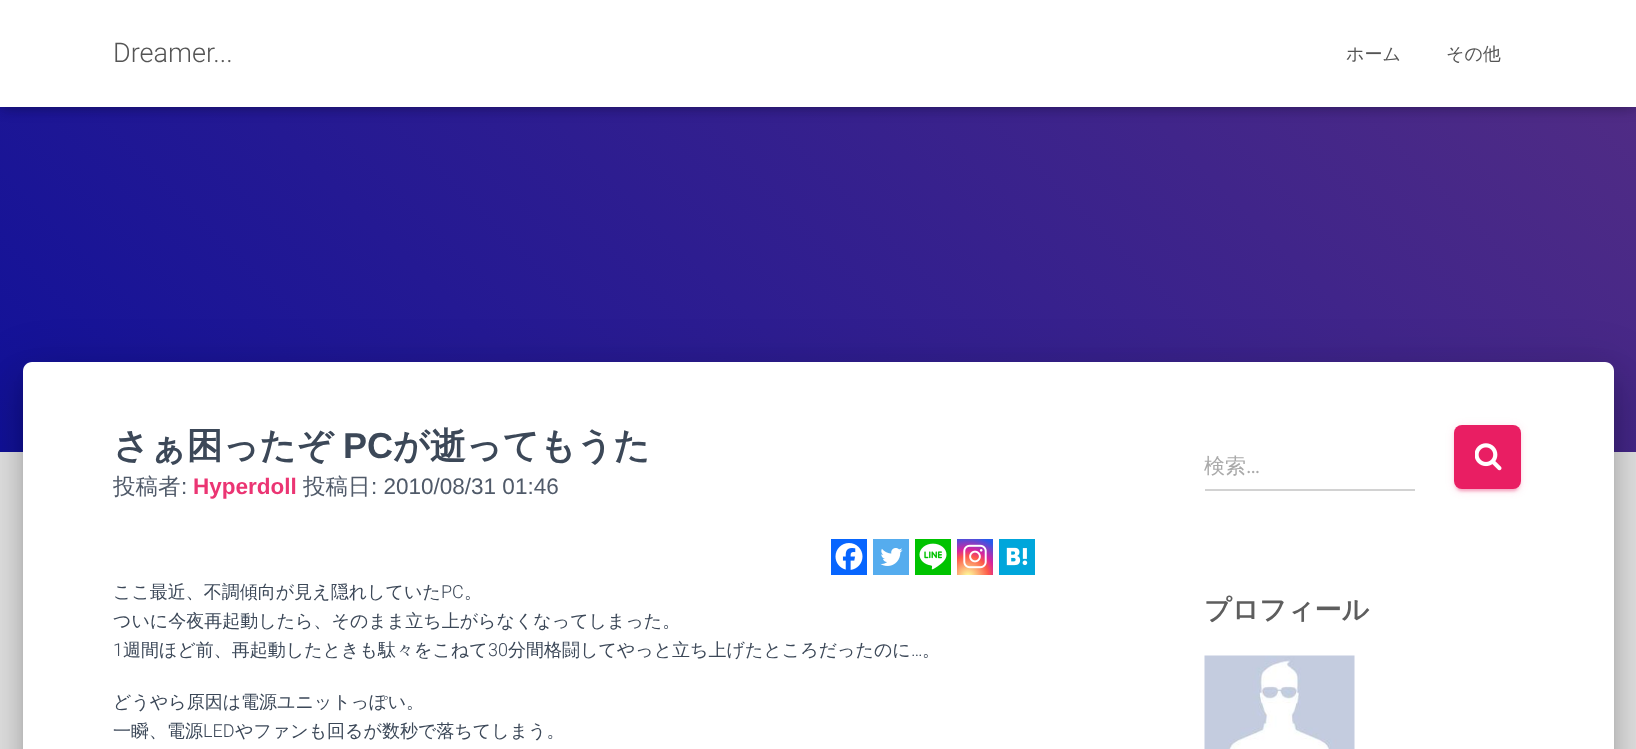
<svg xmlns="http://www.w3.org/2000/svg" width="1636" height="749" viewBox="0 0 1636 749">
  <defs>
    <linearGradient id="g1" gradientUnits="userSpaceOnUse" x1="296" y1="748" x2="1340" y2="-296"><stop offset="0" stop-color="rgb(17,17,153)"/><stop offset="1" stop-color="rgb(83,45,132)"/></linearGradient>
    <radialGradient id="g2" gradientUnits="userSpaceOnUse" cx="968" cy="577" r="46"><stop offset="0" stop-color="rgb(253,244,151)"/><stop offset="0.05" stop-color="rgb(253,244,151)"/><stop offset="0.45" stop-color="rgb(253,89,73)"/><stop offset="0.6" stop-color="rgb(214,36,159)"/><stop offset="0.9" stop-color="rgb(40,90,235)"/></radialGradient>
  </defs>
  <rect width="100%" height="100%" fill="rgb(229,229,229)"/>
  <rect x="0" y="107" width="1636" height="345" fill="url(#g1)"/>
  <rect x="3" y="9" width="1631" height="101" fill="rgba(0,0,0,0.1)" filter="blur(4px)"/>
  <rect x="0" y="2" width="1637" height="106" fill="rgba(0,0,0,0.12)" filter="blur(7.5px)"/>
  <rect x="9" y="11" width="1619" height="88" fill="rgba(0,0,0,0.42)" filter="blur(7.5px)"/>
  <rect x="0" y="0" width="1636" height="107" fill="rgb(255,255,255)"/>
  <text x="113" y="62" font-family="Roboto" font-size="27" font-weight="300" fill="rgb(85,85,85)">Dreamer...</text>
  <g font-family="WenQuanYi Zen Hei" font-size="18" font-weight="500" fill="rgb(85,85,85)">
    <text x="1346" y="60">ホーム</text>
    <text x="1446" y="60">その他</text>
  </g>
  <rect x="30" y="381" width="1577" height="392" rx="1.5" fill="rgba(0,0,0,0.2)" filter="blur(7.5px)"/>
  <rect x="15" y="363" width="1607" height="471" rx="17" fill="rgba(0,0,0,0.12)" filter="blur(22.5px)"/>
  <rect x="20" y="383" width="1597" height="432" rx="12" fill="rgba(0,0,0,0.14)" filter="blur(18px)"/>
  <path d="M32 362H1605C1610 362 1614 366 1614 371V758H23V371C23 366 27 362 32 362Z" fill="rgb(255,255,255)"/>
  <text x="113" y="458" font-family="WenQuanYi Zen Hei" font-size="36" font-weight="bold" fill="rgb(60,72,88)">さぁ困ったぞ</text>
  <text x="343" y="458" font-family="Liberation Sans" font-size="36" font-weight="bold" fill="rgb(60,72,88)">PC</text>
  <text x="393" y="458" font-family="WenQuanYi Zen Hei" font-size="36" font-weight="bold" fill="rgb(60,72,88)">が逝ってもうた</text>
  <text x="113" y="494" font-family="WenQuanYi Zen Hei" font-size="22.5" font-weight="500" fill="rgb(80,90,105)">投稿者</text>
  <text x="181" y="494" font-family="Liberation Sans" font-size="22.5" fill="rgb(80,90,105)">:</text>
  <text x="193" y="494" font-family="Liberation Sans" font-size="22.5" font-weight="bold" fill="rgb(235,53,115)">Hyperdoll</text>
  <text x="303" y="494" font-family="WenQuanYi Zen Hei" font-size="22.5" font-weight="500" fill="rgb(80,90,105)">投稿日</text>
  <text x="371" y="494" font-family="Liberation Sans" font-size="22.5" fill="rgb(80,90,105)">: 2010/08/31 01:46</text>
  <rect x="831" y="539" width="36" height="36" fill="rgb(7,101,254)"/>
  <image x="835" y="543" width="28" height="27" href="pic1.png"/>
  <rect x="873" y="539" width="36" height="36" fill="rgb(85,172,238)"/>
  <image x="880" y="548" width="23" height="18" href="pic2.png"/>
  <rect x="915" y="539" width="36" height="36" fill="rgb(0,195,0)"/>
  <image x="919" y="543" width="28" height="27" href="pic3.png"/>
  <rect x="957" y="539" width="36" height="36" fill="url(#g2)"/>
  <image x="963" y="544" width="24" height="25" href="pic4.png"/>
  <rect x="999" y="539" width="36" height="36" fill="rgb(0,166,219)"/>
  <image x="1006" y="547" width="22" height="19" href="pic5.png"/>
  <text x="113" y="598" font-family="WenQuanYi Zen Hei" font-size="18" font-weight="500" fill="rgb(60,72,88)">ここ最近、不調傾向が見え隠れしていた</text>
  <text x="441" y="598" font-family="Roboto" font-size="18" font-weight="300" fill="rgb(60,72,88)">PC</text>
  <g font-family="WenQuanYi Zen Hei" font-size="18" font-weight="500" fill="rgb(60,72,88)">
    <text x="464" y="598">。</text>
    <text x="113" y="627">ついに今夜再起動したら、そのまま立ち上がらなくなってしまった。</text>
  </g>
  <text x="113" y="656" font-family="Roboto" font-size="18" font-weight="300" fill="rgb(60,72,88)">1</text>
  <text x="123" y="656" font-family="WenQuanYi Zen Hei" font-size="18" font-weight="500" fill="rgb(60,72,88)">週間ほど前、再起動したときも駄々をこねて</text>
  <text x="488" y="656" font-family="Roboto" font-size="18" font-weight="300" fill="rgb(60,72,88)">30</text>
  <text x="508" y="656" font-family="WenQuanYi Zen Hei" font-size="18" font-weight="500" fill="rgb(60,72,88)">分間格闘してやっと立ち上げたところだったのに</text>
  <text x="911" y="656" font-family="Roboto" font-size="18" font-weight="300" fill="rgb(60,72,88)">…</text>
  <g font-family="WenQuanYi Zen Hei" font-size="18" font-weight="500" fill="rgb(60,72,88)">
    <text x="922" y="656">。</text>
    <text>
      <tspan x="113" y="708">どうやら原因は電源ユニットっぽい。</tspan>
      <tspan x="113" y="737">一瞬、電源</tspan>
    </text>
  </g>
  <text x="203" y="737" font-family="Roboto" font-size="18" font-weight="300" fill="rgb(60,72,88)">LED</text>
  <text x="235" y="737" font-family="WenQuanYi Zen Hei" font-size="18" font-weight="500" fill="rgb(60,72,88)">やファンも回るが数秒で落ちてしまう。</text>
  <text x="1204" y="473" font-family="WenQuanYi Zen Hei" font-size="21" font-weight="500" fill="rgb(170,170,170)">検索</text>
  <text x="1246" y="473" font-family="Roboto" font-size="21" fill="rgb(170,170,170)">…</text>
  <rect x="1205" y="489" width="210" height="2" fill="rgb(210,210,210)"/>
  <rect x="1454" y="426" width="67" height="65" rx="8" fill="rgba(233,30,99,0.12)" filter="blur(4px)"/>
  <rect x="1457" y="432" width="61" height="59" rx="5" fill="rgba(233,30,99,0.2)" filter="blur(1px)"/>
  <rect x="1454" y="428" width="67" height="64" rx="8" fill="rgba(233,30,99,0.14)" filter="blur(1.5px)"/>
  <rect x="1454" y="425" width="67" height="64" rx="8" fill="rgb(233,30,99)"/>
  <image x="1475" y="443" width="27" height="28" href="pic6.png"/>
  <text x="1204" y="619" font-family="WenQuanYi Zen Hei" font-size="27" font-weight="bold" fill="rgb(94,94,94)">プロフィール</text>
  <image x="1204" y="655" width="151" height="94" href="pic7.png"/>
</svg>
